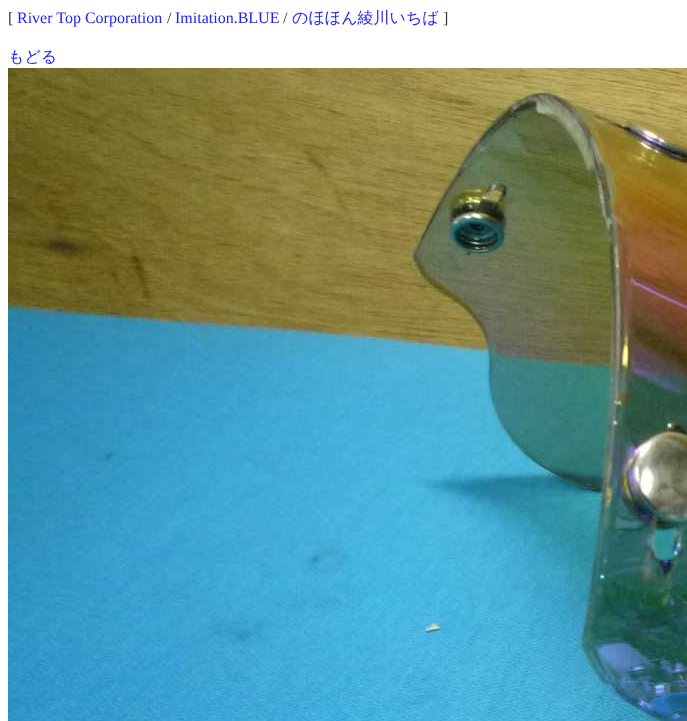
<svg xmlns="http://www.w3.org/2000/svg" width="687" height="721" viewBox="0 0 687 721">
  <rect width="100%" height="100%" fill="rgb(255,255,255)"/>
  <text x="8" y="23" font-family="Liberation Serif" font-size="16" fill="rgb(51,51,51)">[</text>
  <text x="17" y="23" font-family="Liberation Serif" font-size="16" fill="rgb(34,34,255)">River Top Corporation</text>
  <text x="167" y="23" font-family="Liberation Serif" font-size="16" fill="rgb(51,51,51)">/</text>
  <text x="175" y="23" font-family="Liberation Serif" font-size="16" fill="rgb(34,34,255)">Imitation.BLUE</text>
  <text x="283" y="23" font-family="Liberation Serif" font-size="16" fill="rgb(51,51,51)">/</text>
  <text x="292" y="23" font-family="WenQuanYi Zen Hei" font-size="16" font-weight="500" fill="rgb(34,34,255)">のほほん綾川いちば</text>
  <text x="443" y="23" font-family="Liberation Serif" font-size="16" fill="rgb(51,51,51)">]</text>
  <text x="8" y="62" font-family="WenQuanYi Zen Hei" font-size="16" font-weight="500" fill="rgb(34,34,255)">もどる</text>
  <image x="8" y="68" width="679" height="653" href="pic1.png"/>
</svg>
